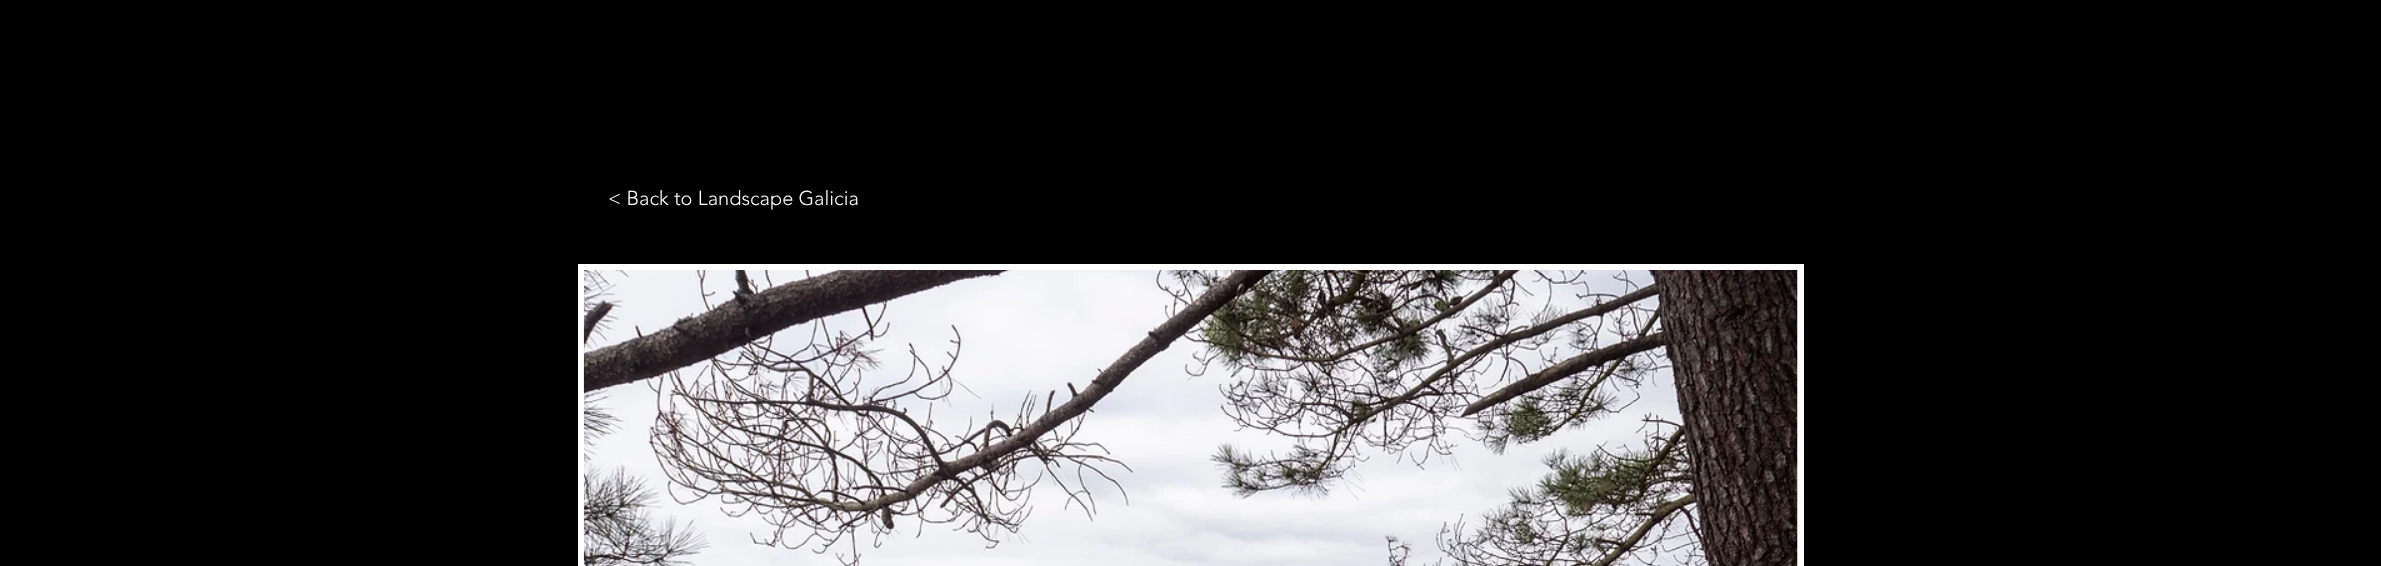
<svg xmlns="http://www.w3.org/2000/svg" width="2381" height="566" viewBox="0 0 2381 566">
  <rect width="100%" height="100%" fill="rgb(0,0,0)"/>
  <text x="608" y="205" font-family="'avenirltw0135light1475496'" font-size="20" font-weight="300" fill="rgb(255,255,255)">&lt; Back to Landscape Galicia</text>
  <rect x="578" y="264" width="1226" height="302" fill="rgb(255,255,255)"/>
  <image x="583" y="270" width="1215" height="296" href="pic1.png"/>
</svg>
